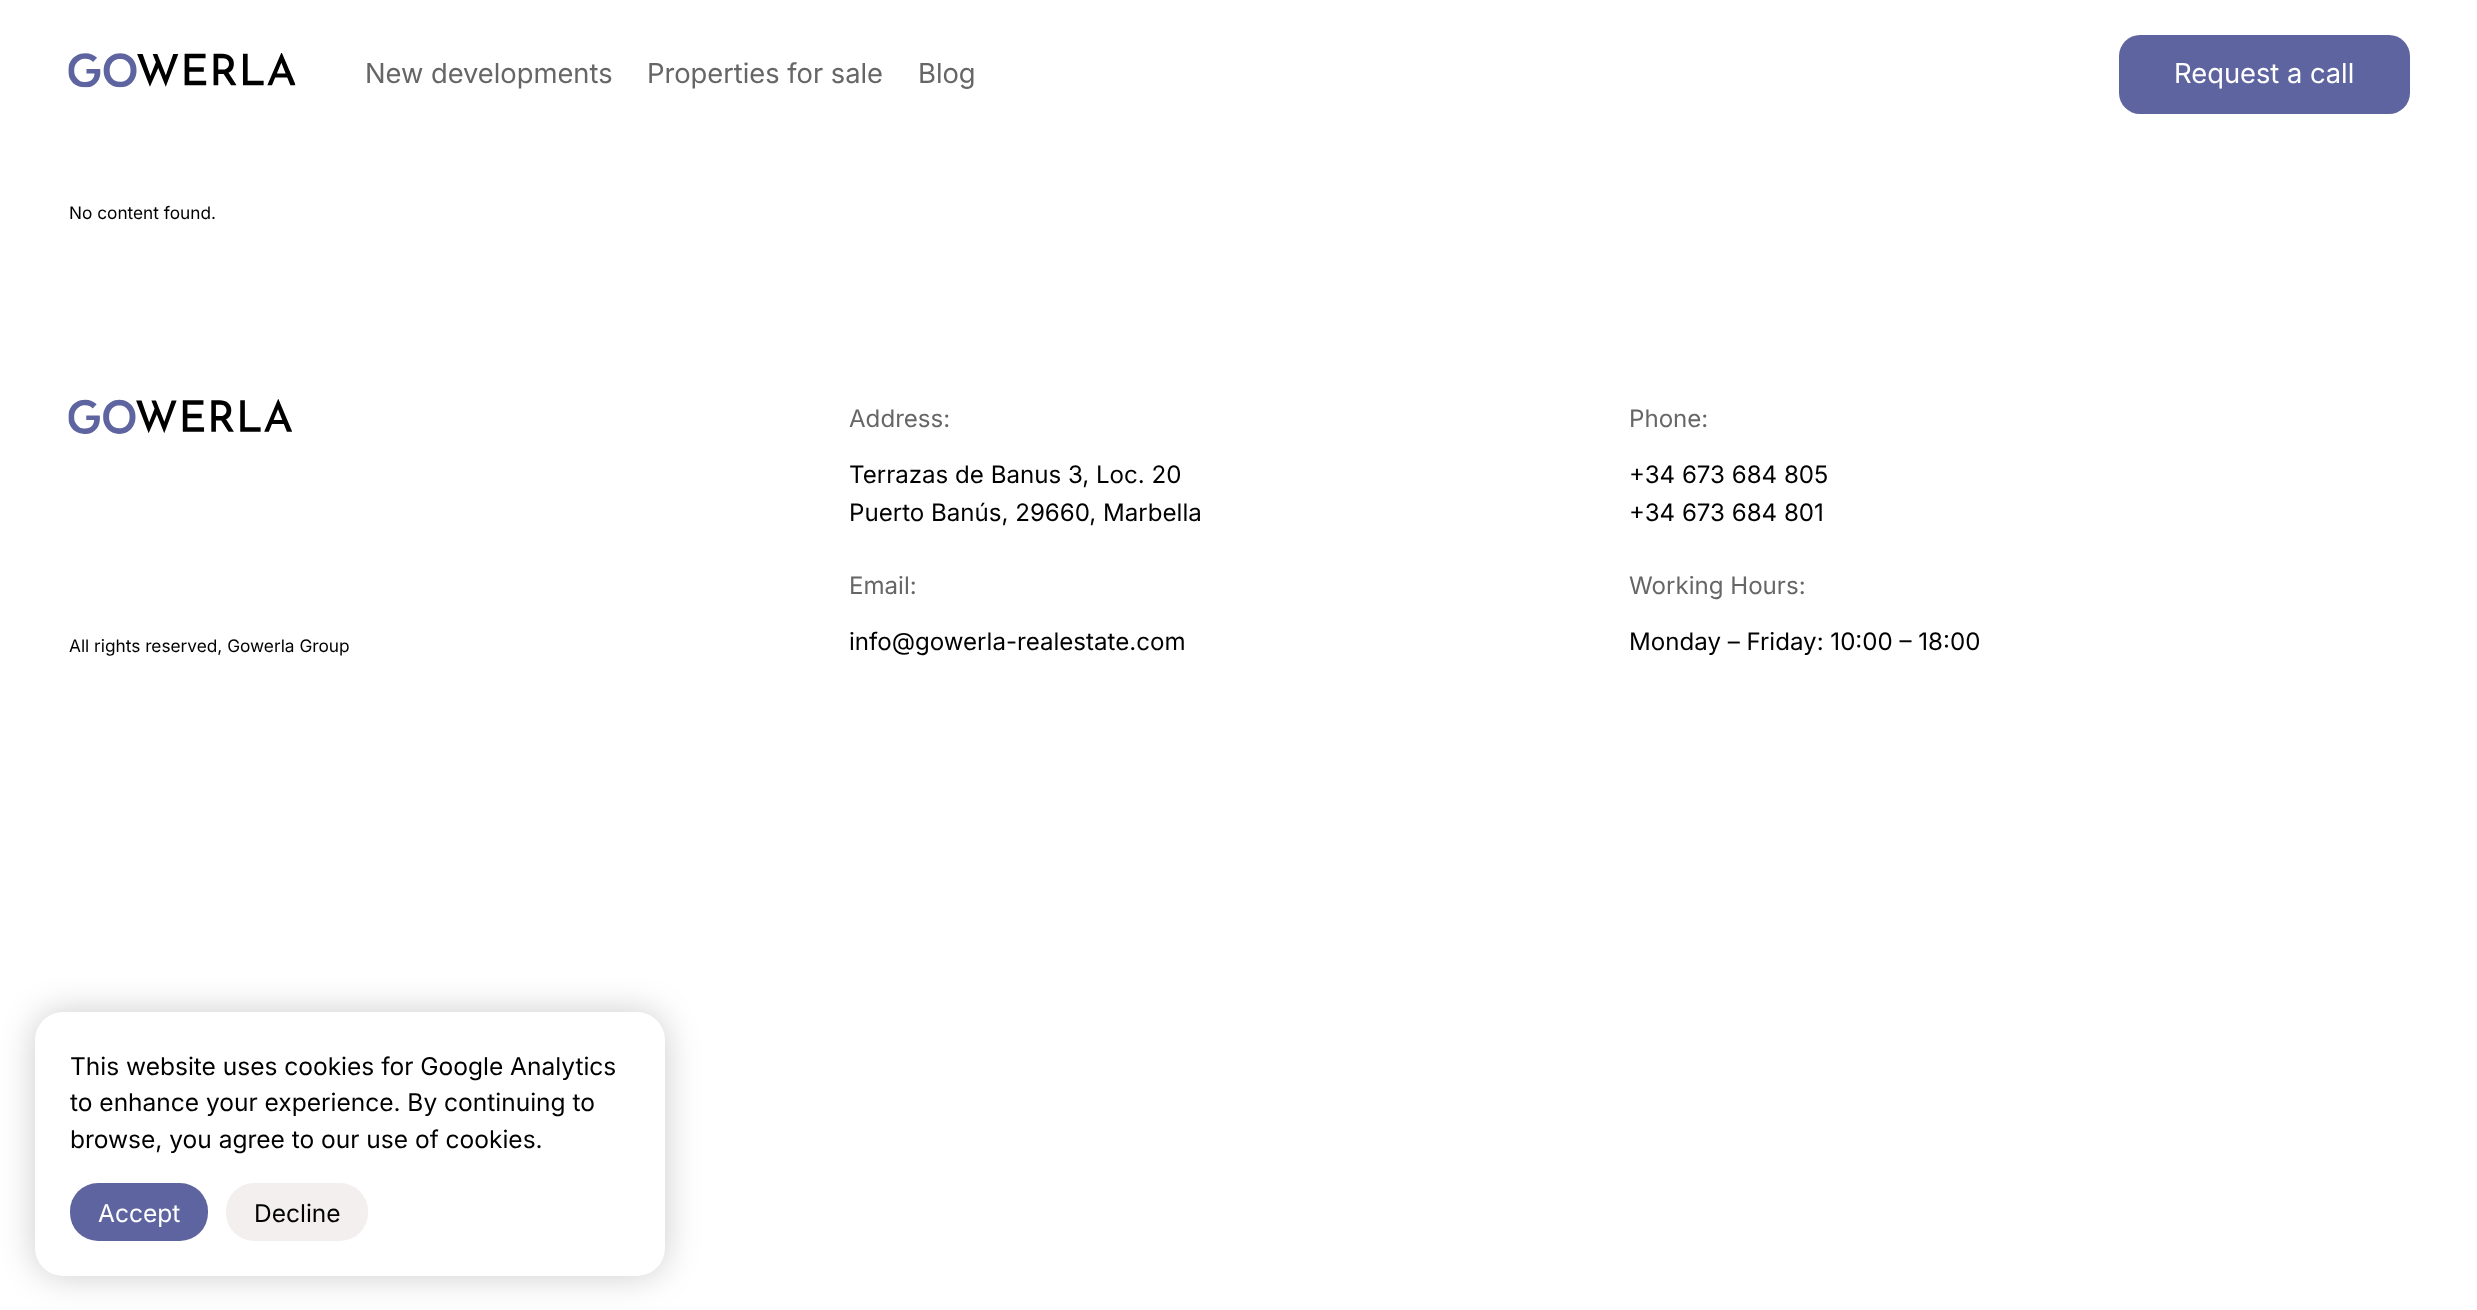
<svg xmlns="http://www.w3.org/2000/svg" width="2477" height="1310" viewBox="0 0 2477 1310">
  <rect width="100%" height="100%" fill="rgb(255,255,255)"/>
  <image x="68" y="53" width="228" height="35" href="pic1.png"/>
  <g font-family="Inter" font-size="27.5" fill="rgb(102,102,102)">
    <text x="365" y="83">New developments</text>
    <text x="647" y="83">Properties for sale</text>
    <text x="918" y="83">Blog</text>
  </g>
  <rect x="2119" y="35" width="291" height="79" rx="21" fill="rgb(94,100,159)"/>
  <text x="2174" y="83" font-family="Inter" font-size="27.5" fill="rgb(255,255,255)">Request a call</text>
  <text x="69" y="219" font-family="'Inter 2'" font-size="17.25" fill="rgb(0,0,0)">No content found.</text>
  <image x="68" y="399" width="224" height="35" href="pic2.png"/>
  <text x="69" y="652" font-family="'Inter 2'" font-size="17.25" fill="rgb(0,0,0)">All rights reserved, Gowerla Group</text>
  <text x="849" y="427" font-family="'Inter 2'" font-size="24.1" fill="rgb(102,102,102)">Address:</text>
  <g font-family="'Inter 2'" font-size="24.1" fill="rgb(0,0,0)">
    <text>
      <tspan x="849" y="483">Terrazas de Banus 3, Loc. 20</tspan>
      <tspan x="849" y="521">Puerto Banús, 29660, Marbella</tspan>
    </text>
  </g>
  <text x="849" y="594" font-family="'Inter 2'" font-size="24.1" fill="rgb(102,102,102)">Email:</text>
  <text x="849" y="650" font-family="'Inter 2'" font-size="24.1" fill="rgb(0,0,0)">info@gowerla-realestate.com</text>
  <text x="1629" y="427" font-family="'Inter 2'" font-size="24.1" fill="rgb(102,102,102)">Phone:</text>
  <g font-family="'Inter 2'" font-size="24.1" fill="rgb(0,0,0)">
    <text>
      <tspan x="1629" y="483">+34 673 684 805</tspan>
      <tspan x="1629" y="521">+34 673 684 801</tspan>
    </text>
  </g>
  <text x="1629" y="594" font-family="'Inter 2'" font-size="24.1" fill="rgb(102,102,102)">Working Hours:</text>
  <text x="1629" y="650" font-family="'Inter 2'" font-size="24.1" fill="rgb(0,0,0)">Monday – Friday: 10:00 – 18:00</text>
  <rect x="35" y="1012" width="630" height="264" rx="28" fill="rgba(0,0,0,0.2)" filter="blur(17.5px)"/>
  <rect x="35" y="1012" width="630" height="264" rx="28" fill="rgb(255,255,255)"/>
  <g font-family="'Inter 2'" font-size="24.5" fill="rgb(0,0,0)">
    <text>
      <tspan x="70" y="1075">This website uses cookies for Google Analytics</tspan>
      <tspan x="70" y="1111">to enhance your experience. By continuing to</tspan>
      <tspan x="70" y="1148">browse, you agree to our use of cookies.</tspan>
    </text>
  </g>
  <rect x="70" y="1183" width="138" height="58" rx="28" fill="rgb(94,100,159)"/>
  <text x="98" y="1222" font-family="'Inter 2'" font-size="24.5" fill="rgb(255,255,255)">Accept</text>
  <rect x="226" y="1183" width="142" height="58" rx="28" fill="rgb(242,239,238)"/>
  <text x="254" y="1222" font-family="'Inter 2'" font-size="24.5" fill="rgb(0,0,0)">Decline</text>
</svg>
